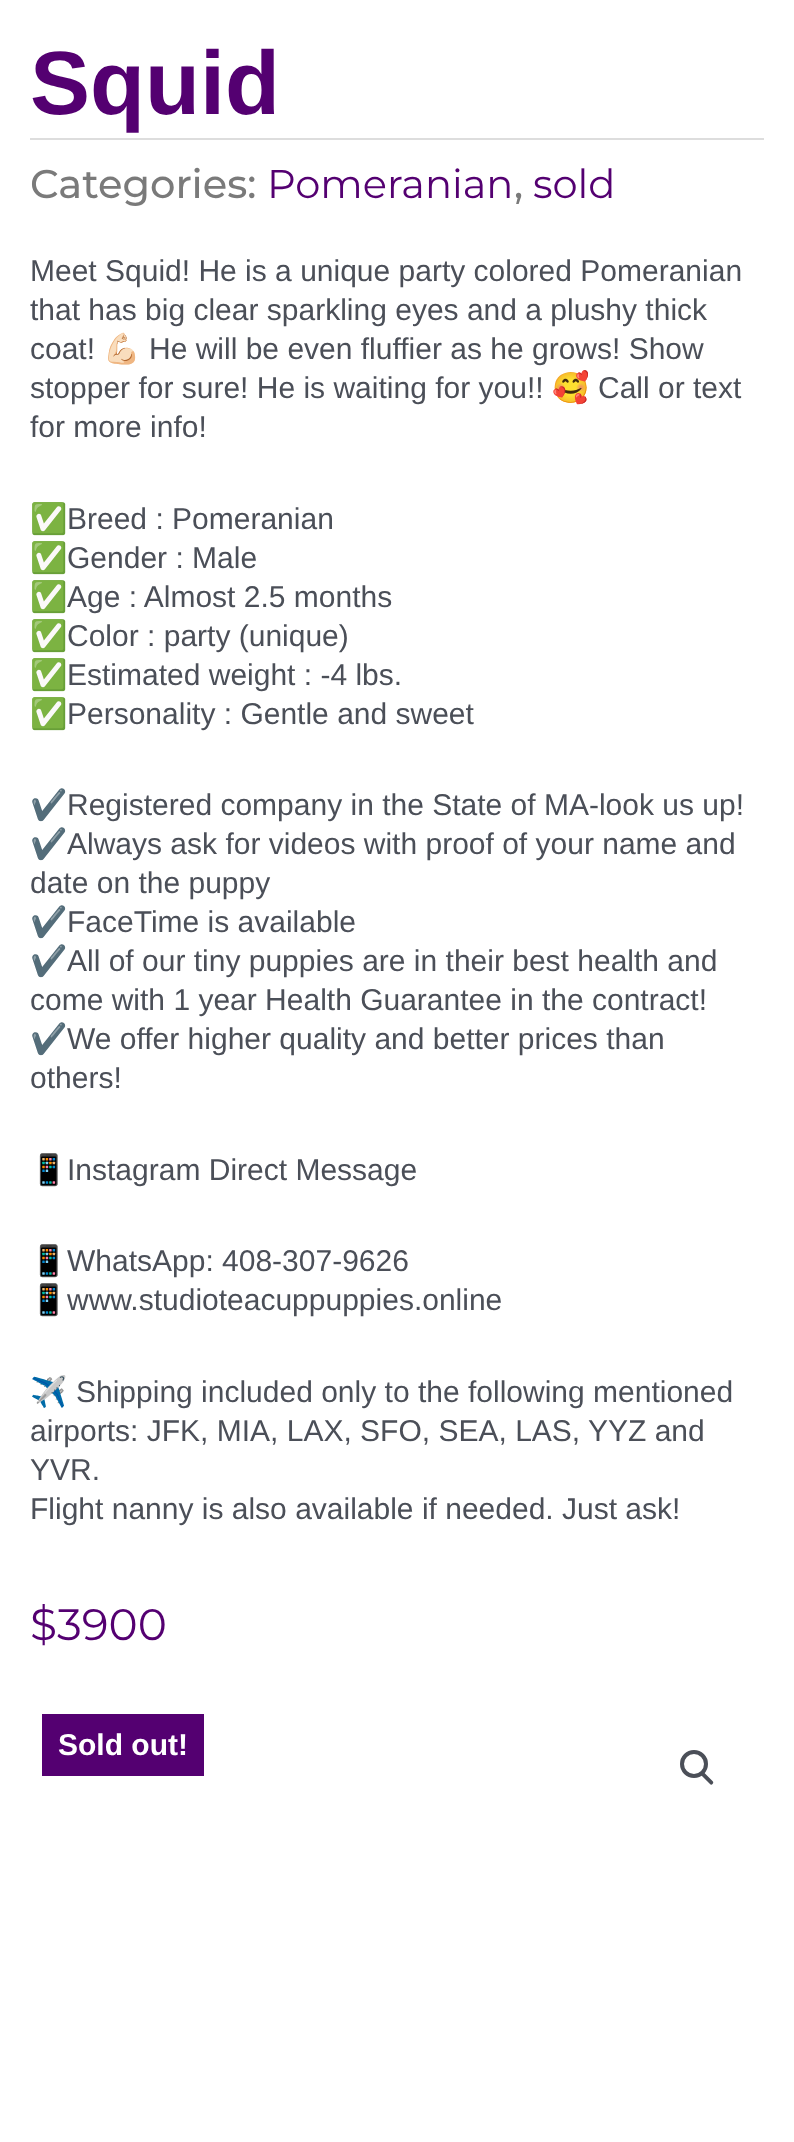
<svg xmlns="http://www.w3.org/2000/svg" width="794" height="2142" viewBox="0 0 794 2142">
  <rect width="100%" height="100%" fill="rgb(255,255,255)"/>
  <text x="30" y="114" font-family="Liberation Sans" font-size="90" font-weight="bold" fill="rgb(84,0,113)">Squid</text>
  <rect x="30" y="138" width="734" height="2" fill="rgb(221,221,221)"/>
  <text x="30" y="198" font-family="Montserrat" font-size="40" font-weight="500" fill="rgb(122,122,122)">Categories:</text>
  <text x="267" y="198" font-family="Montserrat" font-size="40" fill="rgb(84,0,113)">Pomeranian</text>
  <text x="514" y="198" font-family="Montserrat" font-size="40" font-weight="500" fill="rgb(122,122,122)">,</text>
  <text x="533" y="198" font-family="Montserrat" font-size="40" fill="rgb(84,0,113)">sold</text>
  <g font-family="Liberation Sans" font-size="30" fill="rgb(75,79,88)">
    <text>
      <tspan x="30" y="281">Meet Squid! He is a unique party colored Pomeranian</tspan>
      <tspan x="30" y="320">that has big clear sparkling eyes and a plushy thick</tspan>
      <tspan x="30" y="359">coat!</tspan>
    </text>
  </g>
  <text x="103" y="359" font-family="Noto Color Emoji" font-size="30" fill="rgb(75,79,88)">💪🏻</text>
  <g font-family="Liberation Sans" font-size="30" fill="rgb(75,79,88)">
    <text x="149" y="359">He will be even fluffier as he grows! Show</text>
    <text x="30" y="398">stopper for sure! He is waiting for you!!</text>
  </g>
  <text x="552" y="398" font-family="Noto Color Emoji" font-size="30" fill="rgb(75,79,88)">🥰</text>
  <g font-family="Liberation Sans" font-size="30" fill="rgb(75,79,88)">
    <text x="598" y="398">Call or text</text>
    <text x="30" y="437">for more info!</text>
  </g>
  <text x="30" y="529" font-family="Noto Color Emoji" font-size="30" fill="rgb(75,79,88)">✅</text>
  <text x="67" y="529" font-family="Liberation Sans" font-size="30" fill="rgb(75,79,88)">Breed : Pomeranian</text>
  <text x="30" y="568" font-family="Noto Color Emoji" font-size="30" fill="rgb(75,79,88)">✅</text>
  <text x="67" y="568" font-family="Liberation Sans" font-size="30" fill="rgb(75,79,88)">Gender : Male</text>
  <text x="30" y="607" font-family="Noto Color Emoji" font-size="30" fill="rgb(75,79,88)">✅</text>
  <text x="67" y="607" font-family="Liberation Sans" font-size="30" fill="rgb(75,79,88)">Age : Almost 2.5 months</text>
  <text x="30" y="646" font-family="Noto Color Emoji" font-size="30" fill="rgb(75,79,88)">✅</text>
  <text x="67" y="646" font-family="Liberation Sans" font-size="30" fill="rgb(75,79,88)">Color : party (unique)</text>
  <text x="30" y="685" font-family="Noto Color Emoji" font-size="30" fill="rgb(75,79,88)">✅</text>
  <text x="67" y="685" font-family="Liberation Sans" font-size="30" fill="rgb(75,79,88)">Estimated weight : -4 lbs.</text>
  <text x="30" y="724" font-family="Noto Color Emoji" font-size="30" fill="rgb(75,79,88)">✅</text>
  <text x="67" y="724" font-family="Liberation Sans" font-size="30" fill="rgb(75,79,88)">Personality : Gentle and sweet</text>
  <text x="30" y="815" font-family="Noto Color Emoji" font-size="30" fill="rgb(75,79,88)">✔️</text>
  <text x="67" y="815" font-family="Liberation Sans" font-size="30" fill="rgb(75,79,88)">Registered company in the State of MA-look us up!</text>
  <text x="30" y="854" font-family="Noto Color Emoji" font-size="30" fill="rgb(75,79,88)">✔️</text>
  <g font-family="Liberation Sans" font-size="30" fill="rgb(75,79,88)">
    <text x="67" y="854">Always ask for videos with proof of your name and</text>
    <text x="30" y="893">date on the puppy</text>
  </g>
  <text x="30" y="932" font-family="Noto Color Emoji" font-size="30" fill="rgb(75,79,88)">✔️</text>
  <text x="67" y="932" font-family="Liberation Sans" font-size="30" fill="rgb(75,79,88)">FaceTime is available</text>
  <text x="30" y="971" font-family="Noto Color Emoji" font-size="30" fill="rgb(75,79,88)">✔️</text>
  <g font-family="Liberation Sans" font-size="30" fill="rgb(75,79,88)">
    <text x="67" y="971">All of our tiny puppies are in their best health and</text>
    <text x="30" y="1010">come with 1 year Health Guarantee in the contract!</text>
  </g>
  <text x="30" y="1049" font-family="Noto Color Emoji" font-size="30" fill="rgb(75,79,88)">✔️</text>
  <g font-family="Liberation Sans" font-size="30" fill="rgb(75,79,88)">
    <text x="67" y="1049">We offer higher quality and better prices than</text>
    <text x="30" y="1088">others!</text>
  </g>
  <text x="30" y="1180" font-family="Noto Color Emoji" font-size="30" fill="rgb(75,79,88)">📱</text>
  <text x="67" y="1180" font-family="Liberation Sans" font-size="30" fill="rgb(75,79,88)">Instagram Direct Message</text>
  <text x="30" y="1271" font-family="Noto Color Emoji" font-size="30" fill="rgb(75,79,88)">📱</text>
  <text x="67" y="1271" font-family="Liberation Sans" font-size="30" fill="rgb(75,79,88)">WhatsApp: 408-307-9626</text>
  <text x="30" y="1310" font-family="Noto Color Emoji" font-size="30" fill="rgb(75,79,88)">📱</text>
  <text x="67" y="1310" font-family="Liberation Sans" font-size="30" fill="rgb(75,79,88)">www.studioteacuppuppies.online</text>
  <text x="30" y="1402" font-family="Noto Color Emoji" font-size="30" fill="rgb(75,79,88)">✈️</text>
  <g font-family="Liberation Sans" font-size="30" fill="rgb(75,79,88)">
    <text x="76" y="1402">Shipping included only to the following mentioned</text>
    <text>
      <tspan x="30" y="1441">airports: JFK, MIA, LAX, SFO, SEA, LAS, YYZ and</tspan>
      <tspan x="30" y="1480">YVR.</tspan>
      <tspan x="30" y="1519">Flight nanny is also available if needed. Just ask!</tspan>
    </text>
  </g>
  <g font-family="Montserrat" font-size="44" fill="rgb(84,0,113)">
    <text x="30" y="1640">$</text>
    <text x="57" y="1640">3900</text>
  </g>
  <rect x="42" y="1714" width="162" height="62" fill="rgb(84,0,113)"/>
  <text x="58" y="1755" font-family="Liberation Sans" font-size="30" font-weight="bold" fill="rgb(255,255,255)">Sold out!</text>
  <circle cx="694" cy="1764" r="12" fill="none" stroke="rgb(75,79,88)" stroke-width="4"/>
  <path d="M701.5 1772.5C702 1772 703.5 1772 704 1772.5L712.5 1781C713.5 1782 713.5 1783 712.5 1784C712 1785 710.5 1785 710 1784L701.5 1775.5C700.5 1774.5 700.5 1773.5 701.5 1772.5Z" fill="rgb(75,79,88)"/>
</svg>
